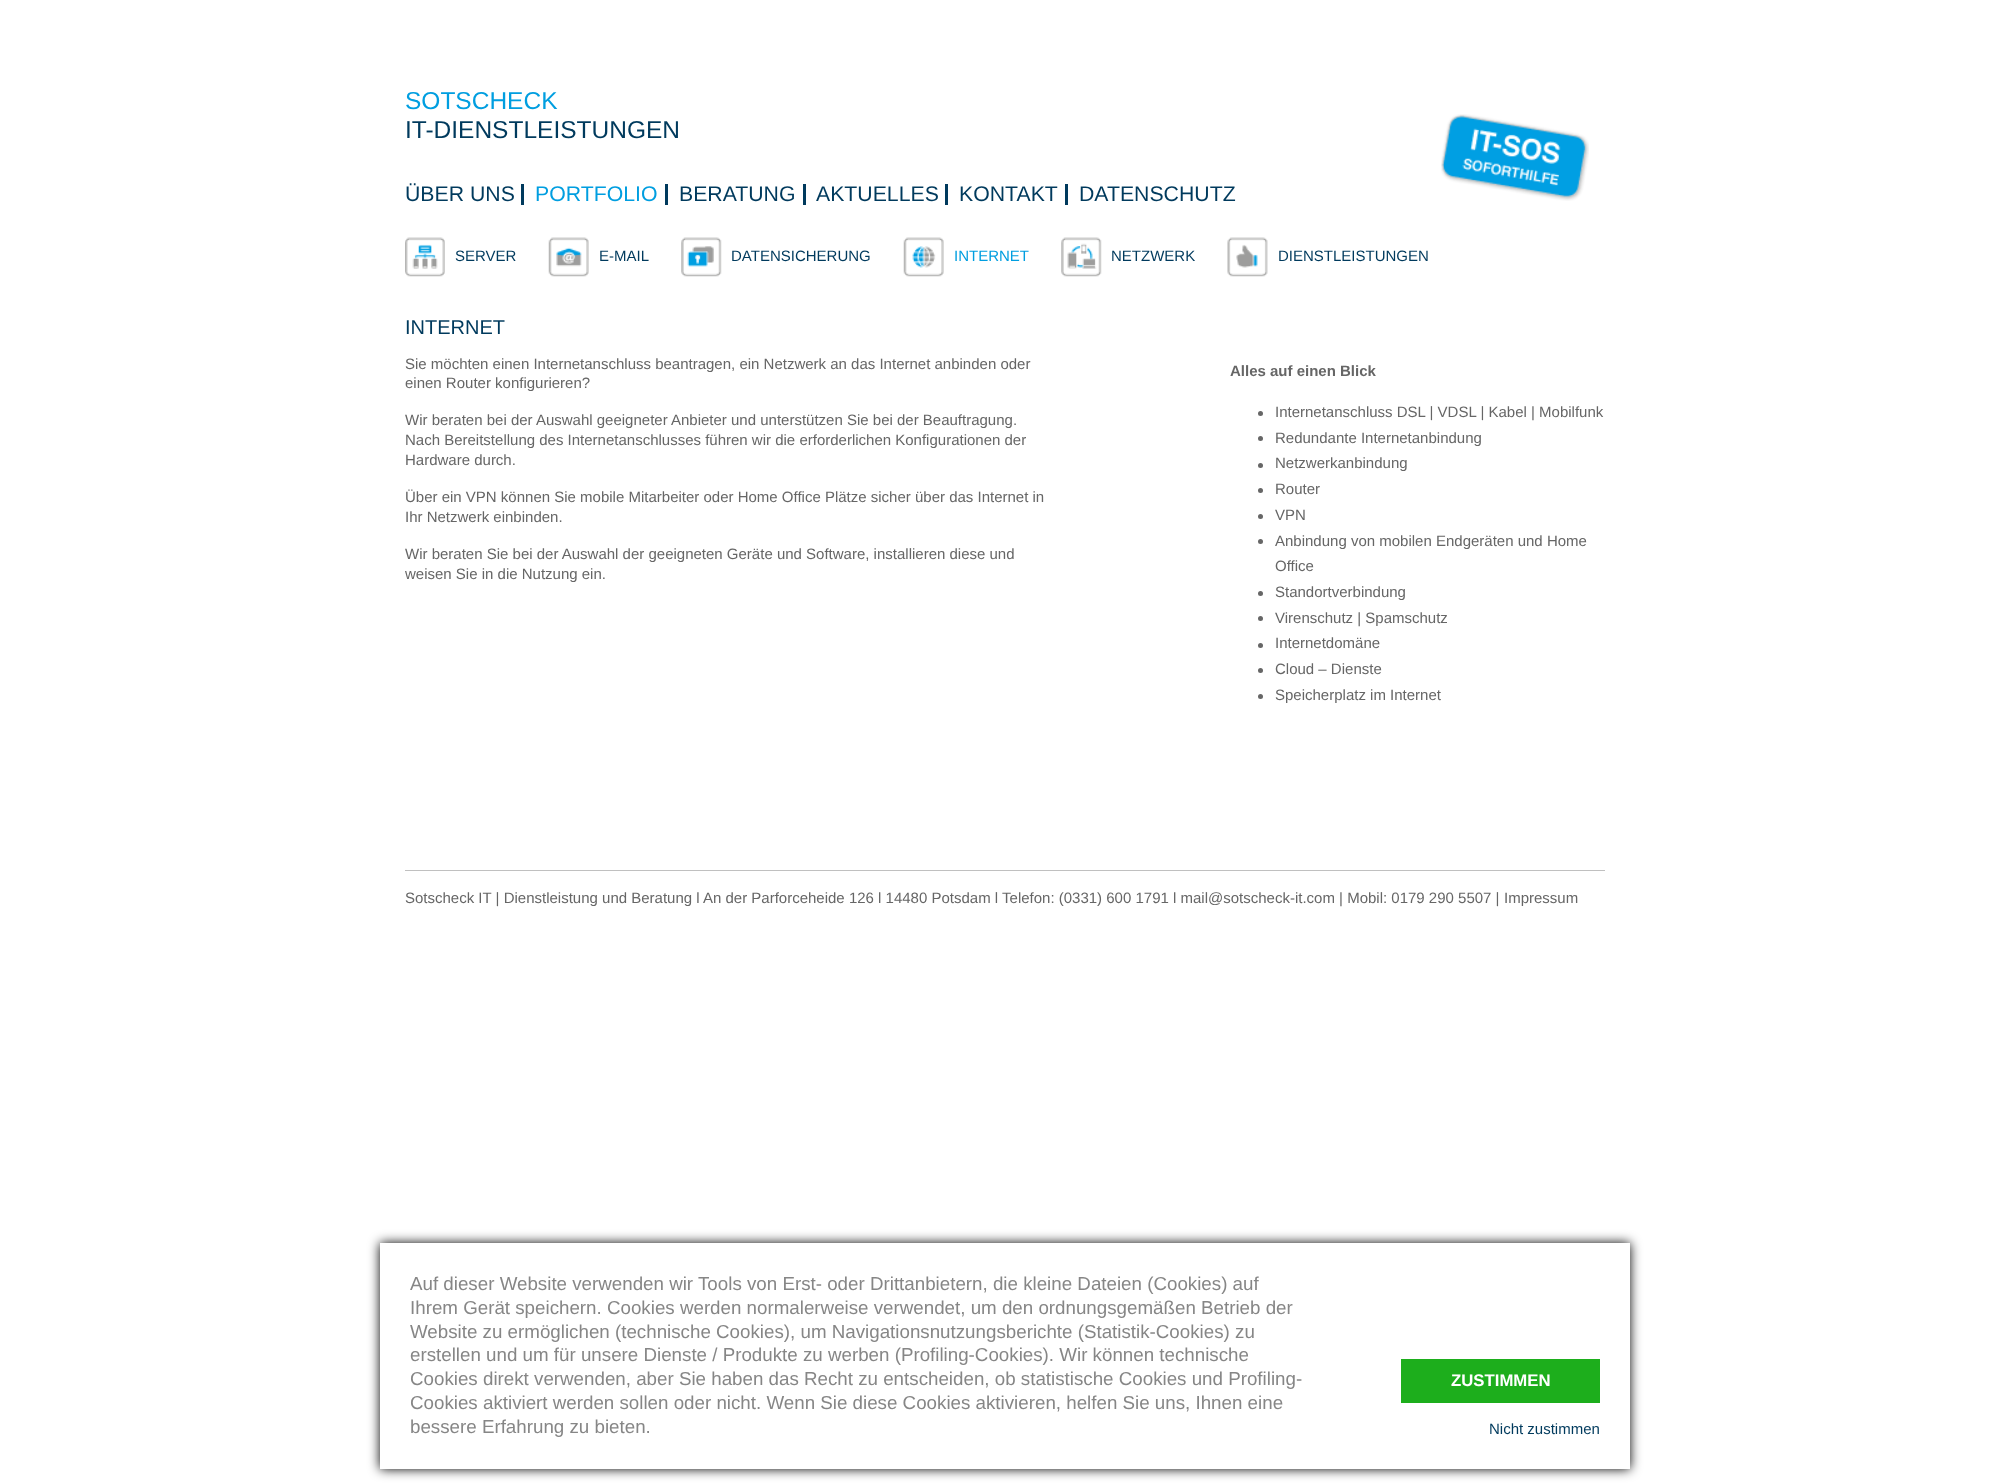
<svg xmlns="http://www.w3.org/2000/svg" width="2010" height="1483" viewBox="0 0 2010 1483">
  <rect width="100%" height="100%" fill="rgb(255,255,255)"/>
  <text x="405" y="109" font-family="Liberation Sans" font-size="24.5" fill="rgb(0,158,224)">SOTSCHECK</text>
  <text x="405" y="138" font-family="Liberation Sans" font-size="24.5" fill="rgb(0,58,93)">IT-DIENSTLEISTUNGEN</text>
  <image x="1441" y="114" width="148" height="87" href="pic1.png"/>
  <rect x="521" y="184" width="3" height="21" fill="rgb(0,58,93)"/>
  <text x="405" y="201" font-family="Liberation Sans" font-size="21.25" fill="rgb(0,58,93)">ÜBER UNS</text>
  <rect x="665" y="184" width="3" height="21" fill="rgb(0,58,93)"/>
  <text x="535" y="201" font-family="Liberation Sans" font-size="21.25" fill="rgb(0,158,224)">PORTFOLIO</text>
  <rect x="803" y="184" width="3" height="21" fill="rgb(0,58,93)"/>
  <text x="679" y="201" font-family="Liberation Sans" font-size="21.25" fill="rgb(0,58,93)">BERATUNG</text>
  <rect x="945" y="184" width="3" height="21" fill="rgb(0,58,93)"/>
  <text x="816" y="201" font-family="Liberation Sans" font-size="21.25" fill="rgb(0,58,93)">AKTUELLES</text>
  <rect x="1065" y="184" width="3" height="21" fill="rgb(0,58,93)"/>
  <g font-family="Liberation Sans" font-size="21.25" fill="rgb(0,58,93)">
    <text x="959" y="201">KONTAKT</text>
    <text x="1079" y="201">DATENSCHUTZ</text>
  </g>
  <image x="405" y="237" width="40" height="40" href="pic2.png"/>
  <text x="455" y="261" font-family="Liberation Sans" font-size="15" fill="rgb(0,58,93)">SERVER</text>
  <image x="548" y="237" width="41" height="40" href="pic3.png"/>
  <text x="599" y="261" font-family="Liberation Sans" font-size="15" fill="rgb(0,58,93)">E-MAIL</text>
  <image x="681" y="237" width="41" height="40" href="pic4.png"/>
  <text x="731" y="261" font-family="Liberation Sans" font-size="15" fill="rgb(0,58,93)">DATENSICHERUNG</text>
  <image x="903" y="237" width="41" height="40" href="pic5.png"/>
  <text x="954" y="261" font-family="Liberation Sans" font-size="15" fill="rgb(0,158,224)">INTERNET</text>
  <image x="1061" y="237" width="41" height="40" href="pic6.png"/>
  <text x="1111" y="261" font-family="Liberation Sans" font-size="15" fill="rgb(0,58,93)">NETZWERK</text>
  <image x="1227" y="237" width="41" height="40" href="pic7.png"/>
  <text x="1278" y="261" font-family="Liberation Sans" font-size="15" fill="rgb(0,58,93)">DIENSTLEISTUNGEN</text>
  <text x="405" y="334" font-family="Liberation Sans" font-size="20" fill="rgb(0,58,93)">INTERNET</text>
  <g font-family="Liberation Sans" font-size="15" fill="rgb(102,102,102)">
    <text>
      <tspan x="405" y="369">Sie möchten einen Internetanschluss beantragen, ein Netzwerk an das Internet anbinden oder</tspan>
      <tspan x="405" y="388">einen Router konfigurieren?</tspan>
    </text>
    <text>
      <tspan x="405" y="425">Wir beraten bei der Auswahl geeigneter Anbieter und unterstützen Sie bei der Beauftragung.</tspan>
      <tspan x="405" y="445">Nach Bereitstellung des Internetanschlusses führen wir die erforderlichen Konfigurationen der</tspan>
      <tspan x="405" y="465">Hardware durch.</tspan>
    </text>
    <text>
      <tspan x="405" y="502">Über ein VPN können Sie mobile Mitarbeiter oder Home Office Plätze sicher über das Internet in</tspan>
      <tspan x="405" y="522">Ihr Netzwerk einbinden.</tspan>
    </text>
    <text>
      <tspan x="405" y="559">Wir beraten Sie bei der Auswahl der geeigneten Geräte und Software, installieren diese und</tspan>
      <tspan x="405" y="579">weisen Sie in die Nutzung ein.</tspan>
    </text>
  </g>
  <text x="1230" y="376" font-family="Liberation Sans" font-size="15" font-weight="bold" fill="rgb(102,102,102)">Alles auf einen Blick</text>
  <circle cx="1260.5" cy="413.5" r="2.5" fill="rgb(102,102,102)"/>
  <text x="1275" y="417" font-family="Liberation Sans" font-size="15" fill="rgb(102,102,102)">Internetanschluss DSL | VDSL | Kabel | Mobilfunk</text>
  <circle cx="1260.5" cy="438.5" r="2.5" fill="rgb(102,102,102)"/>
  <text x="1275" y="443" font-family="Liberation Sans" font-size="15" fill="rgb(102,102,102)">Redundante Internetanbindung</text>
  <circle cx="1260.5" cy="465.5" r="2.5" fill="rgb(102,102,102)"/>
  <text x="1275" y="468" font-family="Liberation Sans" font-size="15" fill="rgb(102,102,102)">Netzwerkanbindung</text>
  <circle cx="1260.5" cy="490.5" r="2.5" fill="rgb(102,102,102)"/>
  <text x="1275" y="494" font-family="Liberation Sans" font-size="15" fill="rgb(102,102,102)">Router</text>
  <circle cx="1260.5" cy="516.5" r="2.5" fill="rgb(102,102,102)"/>
  <text x="1275" y="520" font-family="Liberation Sans" font-size="15" fill="rgb(102,102,102)">VPN</text>
  <circle cx="1260.5" cy="541.5" r="2.5" fill="rgb(102,102,102)"/>
  <g font-family="Liberation Sans" font-size="15" fill="rgb(102,102,102)">
    <text>
      <tspan x="1275" y="546">Anbindung von mobilen Endgeräten und Home</tspan>
      <tspan x="1275" y="571">Office</tspan>
    </text>
  </g>
  <circle cx="1260.5" cy="593.5" r="2.5" fill="rgb(102,102,102)"/>
  <text x="1275" y="597" font-family="Liberation Sans" font-size="15" fill="rgb(102,102,102)">Standortverbindung</text>
  <circle cx="1260.5" cy="618.5" r="2.5" fill="rgb(102,102,102)"/>
  <text x="1275" y="623" font-family="Liberation Sans" font-size="15" fill="rgb(102,102,102)">Virenschutz | Spamschutz</text>
  <circle cx="1260.5" cy="645.5" r="2.5" fill="rgb(102,102,102)"/>
  <text x="1275" y="648" font-family="Liberation Sans" font-size="15" fill="rgb(102,102,102)">Internetdomäne</text>
  <circle cx="1260.5" cy="670.5" r="2.5" fill="rgb(102,102,102)"/>
  <text x="1275" y="674" font-family="Liberation Sans" font-size="15" fill="rgb(102,102,102)">Cloud – Dienste</text>
  <circle cx="1260.5" cy="696.5" r="2.5" fill="rgb(102,102,102)"/>
  <text x="1275" y="700" font-family="Liberation Sans" font-size="15" fill="rgb(102,102,102)">Speicherplatz im Internet</text>
  <rect x="405" y="870" width="1200" height="1" fill="rgb(192,192,192)"/>
  <g font-family="Liberation Sans" font-size="15" fill="rgb(102,102,102)">
    <text x="405" y="903">Sotscheck IT | Dienstleistung und Beratung l An der Parforceheide 126 l 14480 Potsdam l Telefon: (0331) 600 1791 l mail@sotscheck-it.com | Mobil: 0179 290 5507 |</text>
    <text x="1504" y="903">Impressum</text>
  </g>
  <rect x="380" y="1243" width="1250" height="226" fill="rgb(0,0,0)" filter="blur(6px)"/>
  <rect x="380" y="1243" width="1250" height="226" fill="rgb(255,255,255)"/>
  <g font-family="Liberation Sans" font-size="18.75" fill="rgb(134,134,134)">
    <text>
      <tspan x="410" y="1290">Auf dieser Website verwenden wir Tools von Erst- oder Drittanbietern, die kleine Dateien (Cookies) auf</tspan>
      <tspan x="410" y="1314">Ihrem Gerät speichern. Cookies werden normalerweise verwendet, um den ordnungsgemäßen Betrieb der</tspan>
      <tspan x="410" y="1338">Website zu ermöglichen (technische Cookies), um Navigationsnutzungsberichte (Statistik-Cookies) zu</tspan>
      <tspan x="410" y="1361">erstellen und um für unsere Dienste / Produkte zu werben (Profiling-Cookies). Wir können technische</tspan>
      <tspan x="410" y="1385">Cookies direkt verwenden, aber Sie haben das Recht zu entscheiden, ob statistische Cookies und Profiling-</tspan>
      <tspan x="410" y="1409">Cookies aktiviert werden sollen oder nicht. Wenn Sie diese Cookies aktivieren, helfen Sie uns, Ihnen eine</tspan>
      <tspan x="410" y="1433">bessere Erfahrung zu bieten.</tspan>
    </text>
  </g>
  <rect x="1401" y="1359" width="199" height="44" fill="rgb(29,174,28)"/>
  <text x="1451" y="1386" font-family="Liberation Sans" font-size="16.75" font-weight="bold" fill="rgb(255,255,255)">ZUSTIMMEN</text>
  <text x="1489" y="1434" font-family="Liberation Sans" font-size="15" fill="rgb(0,58,93)">Nicht zustimmen</text>
</svg>
